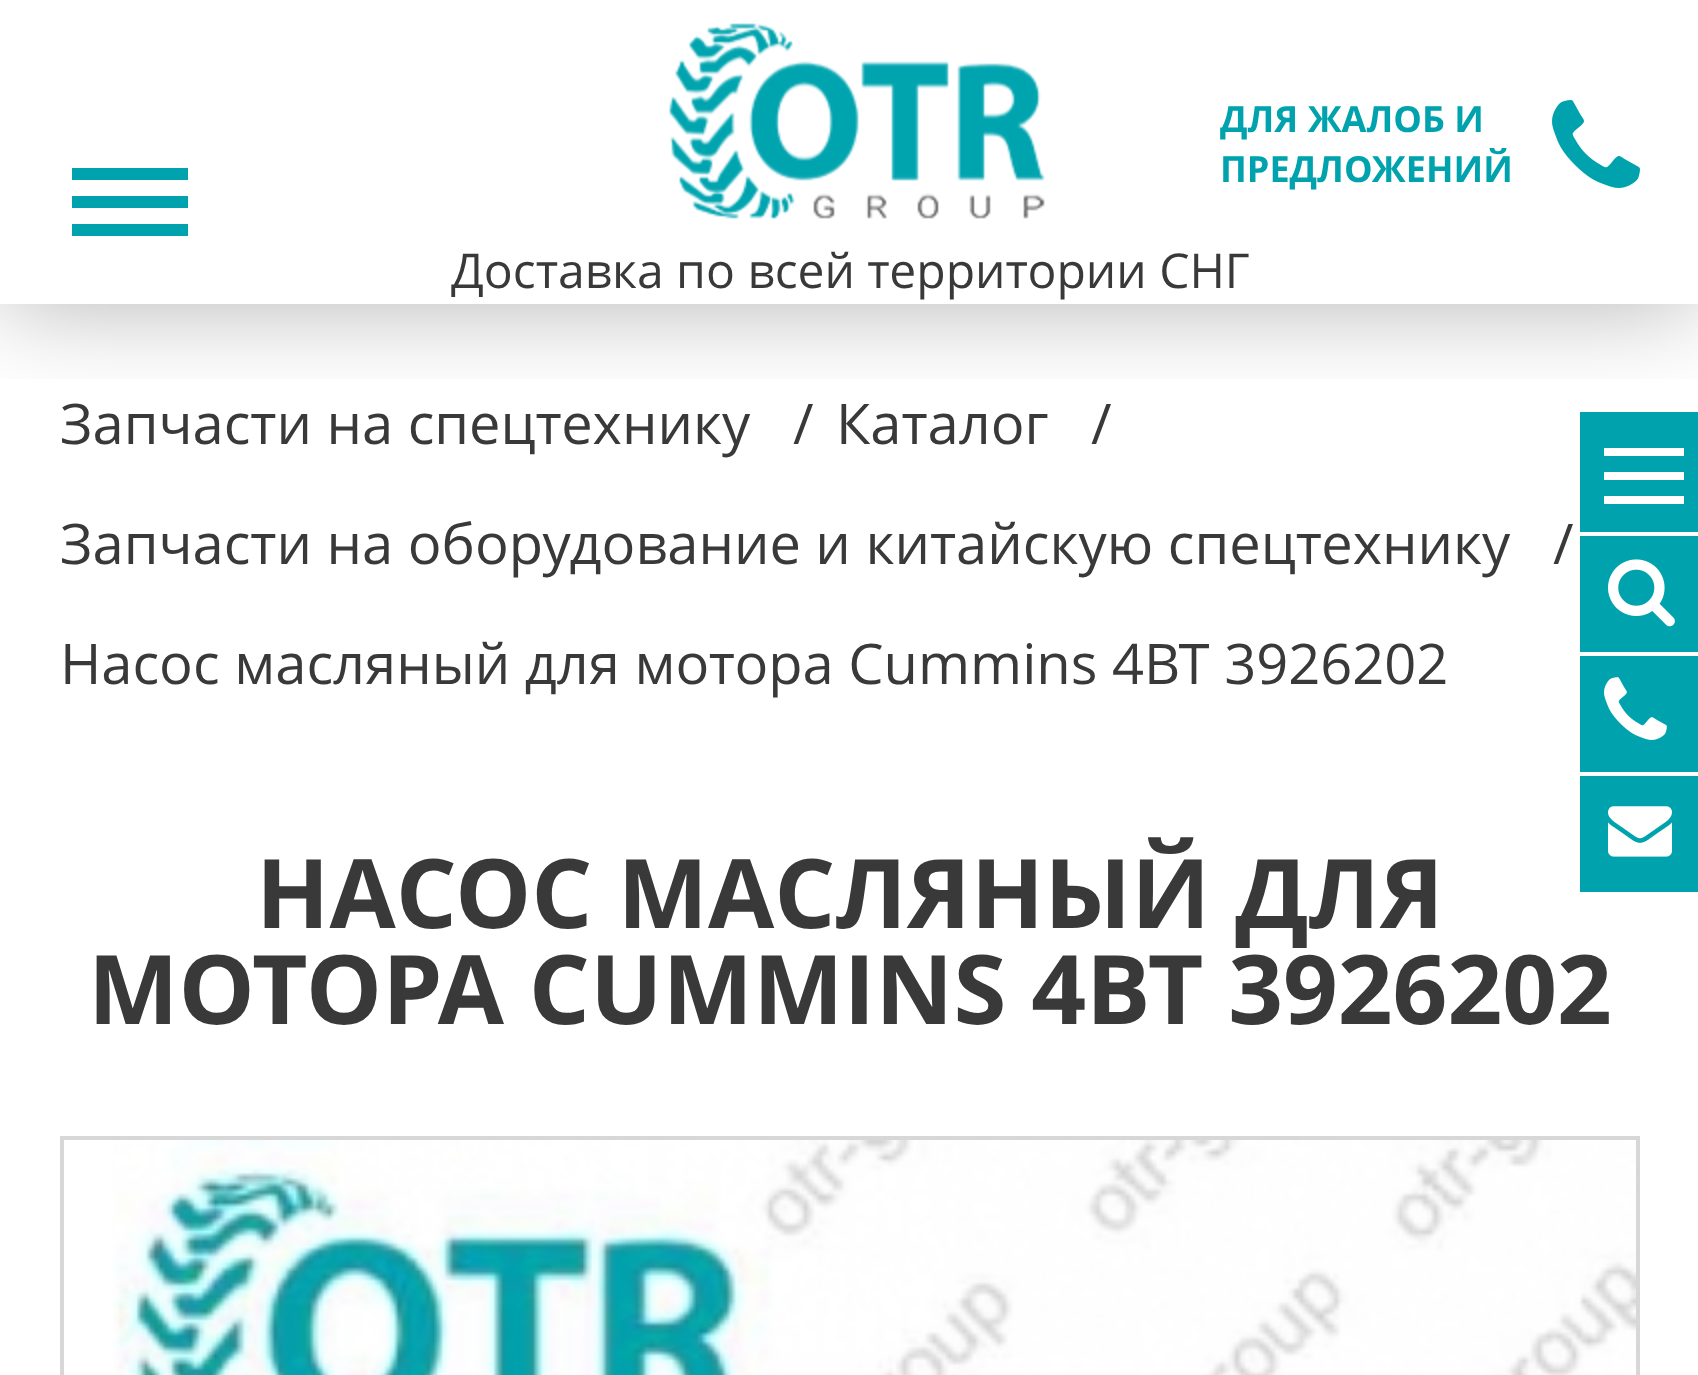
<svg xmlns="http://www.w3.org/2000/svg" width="1698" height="1375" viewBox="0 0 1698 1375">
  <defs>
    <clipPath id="clip1"><rect x="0" y="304" width="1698" height="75"/></clipPath>
  </defs>
  <rect width="100%" height="100%" fill="rgb(255,255,255)"/>
  <rect x="1580" y="412" width="118" height="120" fill="rgb(0,163,173)"/>
  <rect x="1604" y="448" width="80" height="8" fill="rgb(255,255,255)"/>
  <g clip-path="url(#clip1)">
    <rect x="0" y="0" width="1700" height="304" fill="rgba(0,0,0,0.3)" filter="blur(50px)"/>
  </g>
  <image x="669" y="23" width="376" height="196" href="pic1.png"/>
  <g font-family="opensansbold" font-size="36" font-weight="bold" fill="rgb(0,163,173)">
    <text>
      <tspan x="1220" y="132">ДЛЯ ЖАЛОБ И</tspan>
      <tspan x="1220" y="182">ПРЕДЛОЖЕНИЙ</tspan>
    </text>
  </g>
  <image x="1552" y="100" width="88" height="88" href="pic2.png"/>
  <rect x="72" y="168" width="116" height="12" fill="rgb(0,163,173)"/>
  <rect x="72" y="196" width="116" height="12" fill="rgb(0,163,173)"/>
  <rect x="72" y="224" width="116" height="12" fill="rgb(0,163,173)"/>
  <text x="451" y="288" font-family="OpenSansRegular" font-size="48" fill="rgb(57,57,57)">Доставка по всей территории СНГ</text>
  <g font-family="OpenSansRegular" font-size="56" fill="rgb(57,57,57)">
    <text x="60" y="444">Запчасти на спецтехнику</text>
    <text x="793" y="444">/</text>
    <text x="836" y="444">Каталог</text>
    <text x="1091" y="444">/</text>
    <text x="60" y="564">Запчасти на оборудование и китайскую спецтехнику</text>
    <text x="1553" y="564">/</text>
    <text x="60" y="684">Насос масляный для мотора Cummins 4BT 3926202</text>
  </g>
  <rect x="1604" y="472" width="80" height="8" fill="rgb(255,255,255)"/>
  <rect x="1604" y="496" width="80" height="8" fill="rgb(255,255,255)"/>
  <rect x="1580" y="536" width="118" height="116" fill="rgb(0,163,173)"/>
  <image x="1608" y="559" width="67" height="68" href="pic3.png"/>
  <rect x="1580" y="656" width="118" height="116" fill="rgb(0,163,173)"/>
  <image x="1604" y="677" width="63" height="63" href="pic4.png"/>
  <rect x="1580" y="776" width="118" height="116" fill="rgb(0,163,173)"/>
  <image x="1608" y="806" width="64" height="51" href="pic5.png"/>
  <g font-family="opensansbold" font-size="96" font-weight="bold" fill="rgb(57,57,57)">
    <text x="256" y="928">НАСОС МАСЛЯНЫЙ ДЛЯ</text>
    <text x="88" y="1024">МОТОРА CUMMINS 4BT 3926202</text>
  </g>
  <rect x="62" y="1138" width="1576" height="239" fill="none" stroke="rgb(215,215,215)" stroke-width="4"/>
  <image x="113" y="1140" width="1523" height="235" href="pic6.png"/>
</svg>
